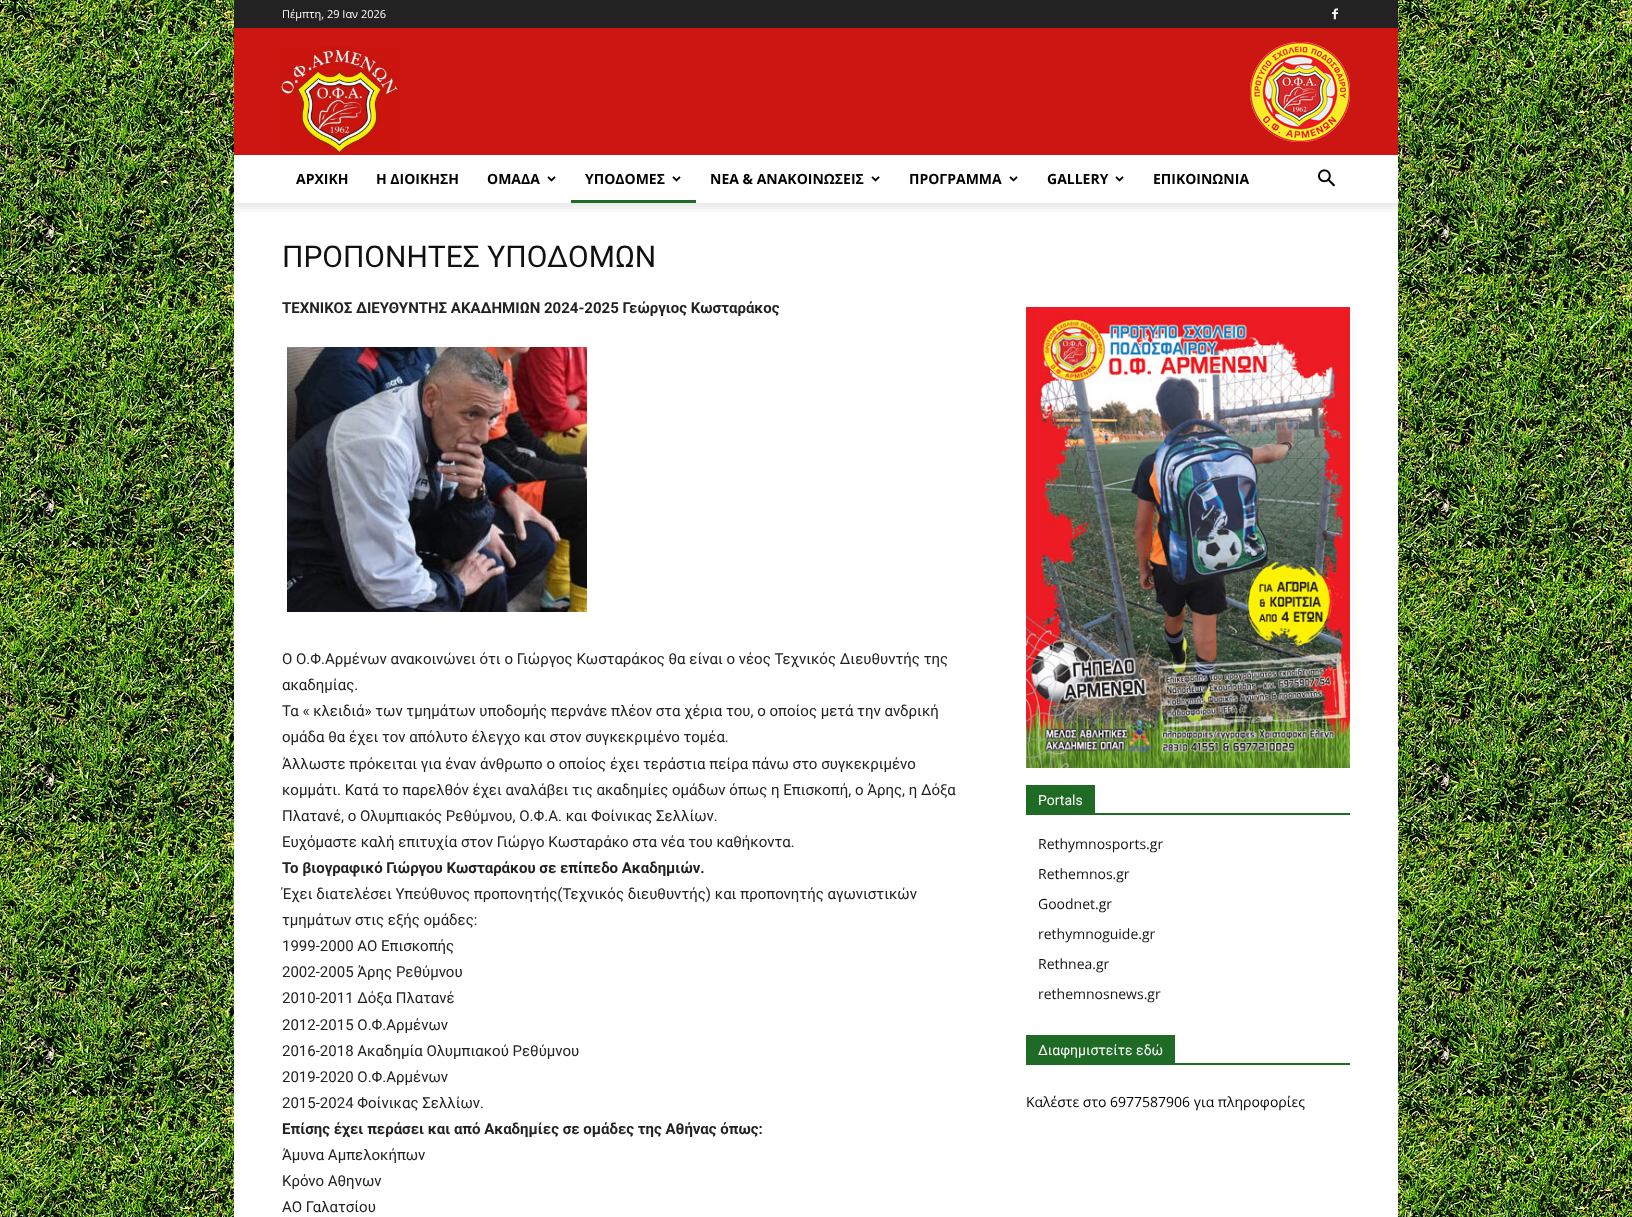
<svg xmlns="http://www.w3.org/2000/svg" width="1632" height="1217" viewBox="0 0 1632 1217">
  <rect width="100%" height="100%" fill="rgb(255,255,255)"/>
  <image x="0" y="0" width="1632" height="1217" href="pic1.png"/>
  <rect x="234" y="0" width="1164" height="28" fill="rgb(34,34,34)"/>
  <text x="282" y="18" font-family="Open Sans" font-size="11" fill="rgb(255,255,255)">Πέμπτη, 29 Ιαν 2026</text>
  <image x="1332" y="8" width="6" height="12" href="pic2.png"/>
  <rect x="234" y="28" width="1164" height="127" fill="rgb(204,22,17)"/>
  <image x="280" y="46" width="120" height="109" href="pic3.png"/>
  <image x="1250" y="42" width="100" height="100" href="pic4.png"/>
  <rect x="234" y="155" width="1164" height="1062" fill="rgb(255,255,255)"/>
  <g font-family="Open Sans" font-size="14" font-weight="bold" fill="rgb(0,0,0)">
    <text x="296" y="184">ΑΡΧΙΚΗ</text>
    <text x="376" y="184">Η ΔΙΟΙΚΗΣΗ</text>
    <text x="487" y="184">ΟΜΑΔΑ</text>
  </g>
  <image x="547" y="176" width="9" height="6" href="pic5.png"/>
  <text x="585" y="184" font-family="Open Sans" font-size="14" font-weight="bold" fill="rgb(0,0,0)">ΥΠΟΔΟΜΕΣ</text>
  <image x="672" y="176" width="9" height="6" href="pic5.png"/>
  <rect x="571" y="200" width="125" height="3" fill="rgb(31,107,37)"/>
  <text x="710" y="184" font-family="Open Sans" font-size="14" font-weight="bold" fill="rgb(0,0,0)">ΝΕΑ &amp; ΑΝΑΚΟΙΝΩΣΕΙΣ</text>
  <image x="871" y="176" width="9" height="6" href="pic5.png"/>
  <text x="909" y="184" font-family="Open Sans" font-size="14" font-weight="bold" fill="rgb(0,0,0)">ΠΡΟΓΡΑΜΜΑ</text>
  <image x="1009" y="176" width="9" height="6" href="pic5.png"/>
  <text x="1047" y="184" font-family="Open Sans" font-size="14" font-weight="bold" fill="rgb(0,0,0)">GALLERY</text>
  <image x="1115" y="176" width="9" height="6" href="pic5.png"/>
  <text x="1153" y="184" font-family="Open Sans" font-size="14" font-weight="bold" fill="rgb(0,0,0)">ΕΠΙΚΟΙΝΩΝΙΑ</text>
  <image x="1318" y="169" width="17" height="18" href="pic6.png"/>
  <image x="234" y="203" width="1164" height="9" href="pic7.png"/>
  <text x="282" y="267" font-family="Roboto" font-size="30" fill="rgb(17,17,17)">ΠΡΟΠΟΝΗΤΕΣ ΥΠΟΔΟΜΩΝ</text>
  <text x="282" y="313" font-family="Roboto" font-size="15" font-weight="bold" fill="rgb(34,34,34)">ΤΕΧΝΙΚΟΣ ΔΙΕΥΘΥΝΤΗΣ ΑΚΑΔΗΜΙΩΝ 2024-2025 Γεώργιος Κωσταράκος</text>
  <image x="287" y="347" width="300" height="265" href="pic8.png"/>
  <g font-family="Roboto" font-size="15" fill="rgb(34,34,34)">
    <text>
      <tspan x="282" y="664">Ο Ο.Φ.Αρμένων ανακοινώνει ότι ο Γιώργος Κωσταράκος θα είναι ο νέος Τεχνικός Διευθυντής της</tspan>
      <tspan x="282" y="690">ακαδημίας.</tspan>
      <tspan x="282" y="716">Τα « κλειδιά» των τμημάτων υποδομής περνάνε πλέον στα χέρια του, ο οποίος μετά την ανδρική</tspan>
      <tspan x="282" y="742">ομάδα θα έχει τον απόλυτο έλεγχο και στον συγκεκριμένο τομέα.</tspan>
      <tspan x="282" y="769">Άλλωστε πρόκειται για έναν άνθρωπο ο οποίος έχει τεράστια πείρα πάνω στο συγκεκριμένο</tspan>
      <tspan x="282" y="795">κομμάτι. Κατά το παρελθόν έχει αναλάβει τις ακαδημίες ομάδων όπως η Επισκοπή, ο Άρης, η Δόξα</tspan>
      <tspan x="282" y="821">Πλατανέ, ο Ολυμπιακός Ρεθύμνου, Ο.Φ.Α. και Φοίνικας Σελλίων.</tspan>
      <tspan x="282" y="847">Ευχόμαστε καλή επιτυχία στον Γιώργο Κωσταράκο στα νέα του καθήκοντα.</tspan>
    </text>
  </g>
  <text x="282" y="873" font-family="Roboto" font-size="15" font-weight="bold" fill="rgb(34,34,34)">Το βιογραφικό Γιώργου Κωσταράκου σε επίπεδο Ακαδημιών.</text>
  <g font-family="Roboto" font-size="15" fill="rgb(34,34,34)">
    <text>
      <tspan x="282" y="899">Έχει διατελέσει Υπεύθυνος προπονητής(Τεχνικός διευθυντής) και προπονητής αγωνιστικών</tspan>
      <tspan x="282" y="925">τμημάτων στις εξής ομάδες:</tspan>
      <tspan x="282" y="951">1999-2000 ΑΟ Επισκοπής</tspan>
      <tspan x="282" y="977">2002-2005 Άρης Ρεθύμνου</tspan>
      <tspan x="282" y="1003">2010-2011 Δόξα Πλατανέ</tspan>
      <tspan x="282" y="1030">2012-2015 Ο.Φ.Αρμένων</tspan>
      <tspan x="282" y="1056">2016-2018 Ακαδημία Ολυμπιακού Ρεθύμνου</tspan>
      <tspan x="282" y="1082">2019-2020 Ο.Φ.Αρμένων</tspan>
      <tspan x="282" y="1108">2015-2024 Φοίνικας Σελλίων.</tspan>
    </text>
  </g>
  <text x="282" y="1134" font-family="Roboto" font-size="15" font-weight="bold" fill="rgb(34,34,34)">Επίσης έχει περάσει και από Ακαδημίες σε ομάδες της Αθήνας όπως:</text>
  <g font-family="Roboto" font-size="15" fill="rgb(34,34,34)">
    <text>
      <tspan x="282" y="1160">Άμυνα Αμπελοκήπων</tspan>
      <tspan x="282" y="1186">Κρόνο Αθηνων</tspan>
      <tspan x="282" y="1212">ΑΟ Γαλατσίου</tspan>
    </text>
  </g>
  <image x="1026" y="307" width="324" height="461" href="pic9.png"/>
  <rect x="1026" y="813" width="324" height="2" fill="rgb(31,107,37)"/>
  <rect x="1026" y="785" width="69" height="28" fill="rgb(31,107,37)"/>
  <text x="1038" y="805" font-family="Roboto" font-size="14" fill="rgb(255,255,255)">Portals</text>
  <g font-family="Open Sans" font-size="14" fill="rgb(17,17,17)">
    <text x="1038" y="849">Rethymnosports.gr</text>
    <text x="1038" y="879">Rethemnos.gr</text>
    <text x="1038" y="909">Goodnet.gr</text>
    <text x="1038" y="939">rethymnoguide.gr</text>
    <text x="1038" y="969">Rethnea.gr</text>
    <text x="1038" y="999">rethemnosnews.gr</text>
  </g>
  <rect x="1026" y="1063" width="324" height="2" fill="rgb(31,107,37)"/>
  <rect x="1026" y="1035" width="149" height="28" fill="rgb(31,107,37)"/>
  <text x="1038" y="1055" font-family="Roboto" font-size="14" fill="rgb(255,255,255)">Διαφημιστείτε εδώ</text>
  <text x="1026" y="1107" font-family="Open Sans" font-size="14" fill="rgb(0,0,0)">Καλέστε στο 6977587906 για πληροφορίες</text>
</svg>
